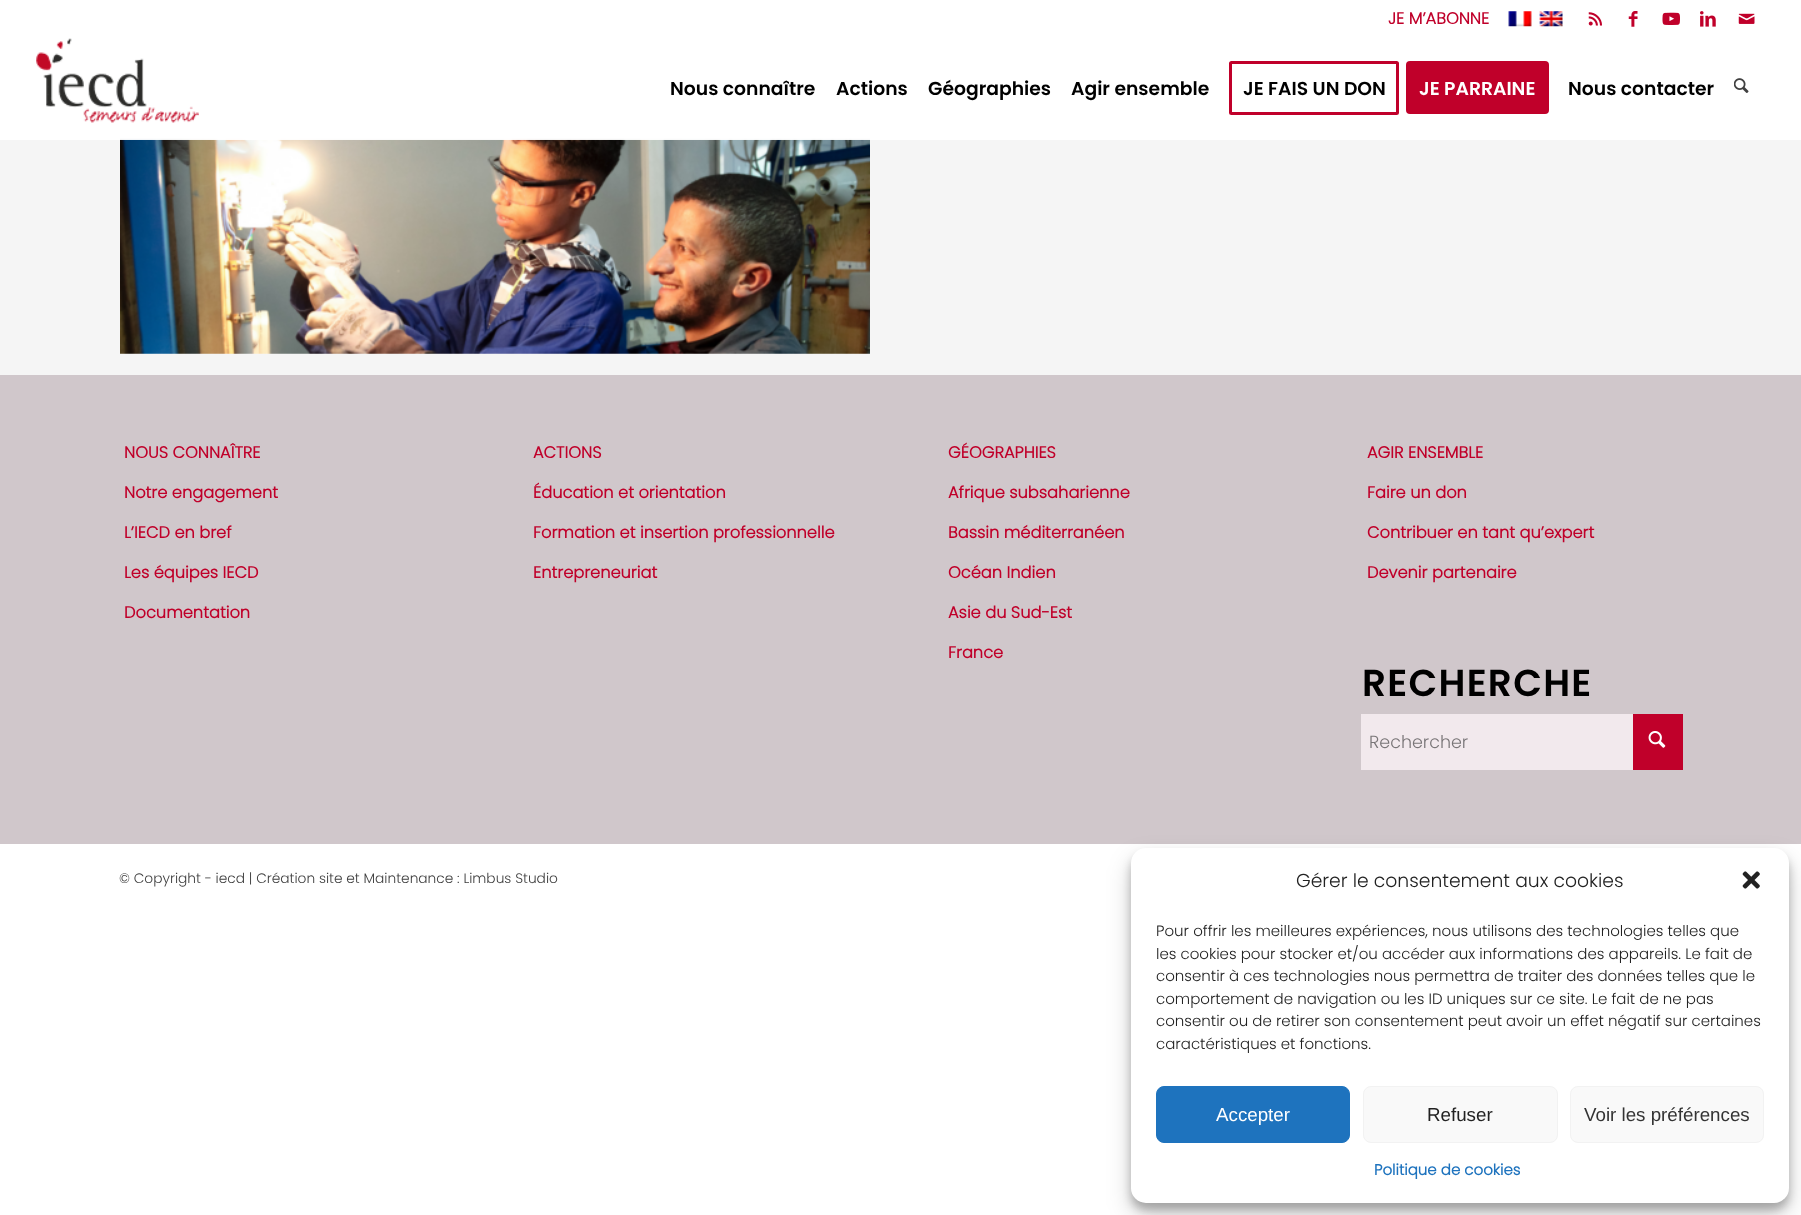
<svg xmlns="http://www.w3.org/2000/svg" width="1801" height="1215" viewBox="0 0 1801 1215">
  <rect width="100%" height="100%" fill="rgb(255,255,255)"/>
  <rect x="0" y="0" width="1801" height="375" fill="rgb(245,245,245)"/>
  <image x="120" y="138" width="750" height="216" href="pic10.png"/>
  <rect x="0" y="0" width="1801" height="140" fill="rgba(255,255,255,0.95)"/>
  <text x="1388" y="24" font-family="Poppins" font-size="16.25" font-weight="bold" fill="rgb(192,0,42)">JE M’ABONNE</text>
  <image x="1508" y="11" width="24" height="16" href="pic1.png"/>
  <image x="1539" y="11" width="24" height="16" href="pic2.png"/>
  <image x="1588" y="12" width="14" height="14" href="pic3.png"/>
  <image x="1628" y="11" width="10" height="16" href="pic4.png"/>
  <image x="1662" y="12" width="18" height="13" href="pic5.png"/>
  <image x="1700" y="11" width="16" height="16" href="pic6.png"/>
  <image x="1738" y="13" width="17" height="11" href="pic7.png"/>
  <image x="36" y="38" width="163" height="85" href="pic8.png"/>
  <g font-family="Poppins" font-size="18.75" font-weight="600" fill="rgb(0,0,0)">
    <text x="670" y="95">Nous connaître</text>
    <text x="836" y="95">Actions</text>
    <text x="928" y="95">Géographies</text>
    <text x="1071" y="95">Agir ensemble</text>
  </g>
  <rect x="1230.5" y="62.5" width="167" height="51" rx="1" fill="none" stroke="rgb(192,0,42)" stroke-width="3"/>
  <text x="1243" y="95" font-family="Poppins" font-size="18.75" font-weight="600" fill="rgb(0,0,0)">JE FAIS UN DON</text>
  <rect x="1406" y="61" width="143" height="53" rx="4" fill="rgb(192,0,42)"/>
  <text x="1419" y="95" font-family="Poppins" font-size="18.75" font-weight="600" fill="rgb(255,255,255)">JE PARRAINE</text>
  <text x="1568" y="95" font-family="Poppins" font-size="18.75" font-weight="600" fill="rgb(0,0,0)">Nous contacter</text>
  <image x="1734" y="78" width="15" height="15" href="pic9.png"/>
  <rect x="0" y="375" width="1801" height="469" fill="rgb(208,199,203)"/>
  <g font-family="Poppins" font-size="16.25" font-weight="bold" fill="rgb(192,0,42)">
    <text x="124" y="458">NOUS CONNAÎTRE</text>
    <text x="124" y="498">Notre engagement</text>
    <text x="124" y="538">L’IECD en bref</text>
    <text x="124" y="578">Les équipes IECD</text>
    <text x="124" y="618">Documentation</text>
    <text x="533" y="458">ACTIONS</text>
    <text x="533" y="498">Éducation et orientation</text>
    <text x="533" y="538">Formation et insertion professionnelle</text>
    <text x="533" y="578">Entrepreneuriat</text>
    <text x="948" y="458">GÉOGRAPHIES</text>
    <text x="948" y="498">Afrique subsaharienne</text>
    <text x="948" y="538">Bassin méditerranéen</text>
    <text x="948" y="578">Océan Indien</text>
    <text x="948" y="618">Asie du Sud-Est</text>
    <text x="948" y="658">France</text>
    <text x="1367" y="458">AGIR ENSEMBLE</text>
    <text x="1367" y="498">Faire un don</text>
    <text x="1367" y="538">Contribuer en tant qu’expert</text>
    <text x="1367" y="578">Devenir partenaire</text>
  </g>
  <text x="1362" y="696" font-family="Poppins" font-size="37.5" font-weight="600" letter-spacing="1.25" fill="rgb(0,0,0)">RECHERCHE</text>
  <rect x="1633" y="714" width="50" height="56" fill="rgb(192,0,42)"/>
  <rect x="1361" y="714" width="272" height="56" fill="rgb(242,233,237)"/>
  <text x="1369" y="748" font-family="Poppins" font-size="17.5" font-weight="300" fill="rgb(121,117,119)">Rechercher</text>
  <image x="1648" y="731" width="18" height="17" href="pic11.png"/>
  <text x="119" y="883" font-family="Poppins" font-size="13.75" font-weight="300" fill="rgb(64,64,64)">© Copyright - iecd | Création site et Maintenance : Limbus Studio</text>
  <rect x="1131" y="855" width="658" height="355" rx="15" fill="rgba(0,0,0,0.23)" filter="blur(4px)"/>
  <rect x="1131" y="860" width="658" height="355" rx="15" fill="rgba(0,0,0,0.19)" filter="blur(12.5px)"/>
  <rect x="1131" y="848" width="658" height="355" rx="15" fill="rgb(255,255,255)"/>
  <text x="1296" y="887" font-family="Poppins" font-size="18.75" font-weight="300" fill="rgb(34,34,34)">Gérer le consentement aux cookies</text>
  <image x="1742" y="871" width="18" height="18" href="pic12.png"/>
  <g font-family="Poppins" font-size="15" font-weight="300" fill="rgb(34,34,34)">
    <text>
      <tspan x="1156" y="936">Pour offrir les meilleures expériences, nous utilisons des technologies telles que</tspan>
      <tspan x="1156" y="959">les cookies pour stocker et/ou accéder aux informations des appareils. Le fait de</tspan>
      <tspan x="1156" y="981">consentir à ces technologies nous permettra de traiter des données telles que le</tspan>
      <tspan x="1156" y="1004">comportement de navigation ou les ID uniques sur ce site. Le fait de ne pas</tspan>
      <tspan x="1156" y="1026">consentir ou de retirer son consentement peut avoir un effet négatif sur certaines</tspan>
      <tspan x="1156" y="1049">caractéristiques et fonctions.</tspan>
    </text>
  </g>
  <rect x="1156.5" y="1086.5" width="193" height="56" rx="7.5" fill="rgb(30,115,190)" stroke="rgb(30,115,190)"/>
  <text x="1216" y="1121" font-family="Liberation Sans" font-size="18.75" fill="rgb(255,255,255)">Accepter</text>
  <rect x="1363.5" y="1086.5" width="194" height="56" rx="7.5" fill="rgb(249,249,249)" stroke="rgb(242,242,242)"/>
  <text x="1427" y="1121" font-family="Liberation Sans" font-size="18.75" fill="rgb(34,34,34)">Refuser</text>
  <rect x="1570.5" y="1086.5" width="193" height="56" rx="7.5" fill="rgb(249,249,249)" stroke="rgb(242,242,242)"/>
  <text x="1584" y="1121" font-family="Liberation Sans" font-size="18.75" fill="rgb(51,51,51)">Voir les préférences</text>
  <text x="1374" y="1175" font-family="Poppins" font-size="15" font-weight="bold" fill="rgb(30,115,190)">Politique de cookies</text>
</svg>
